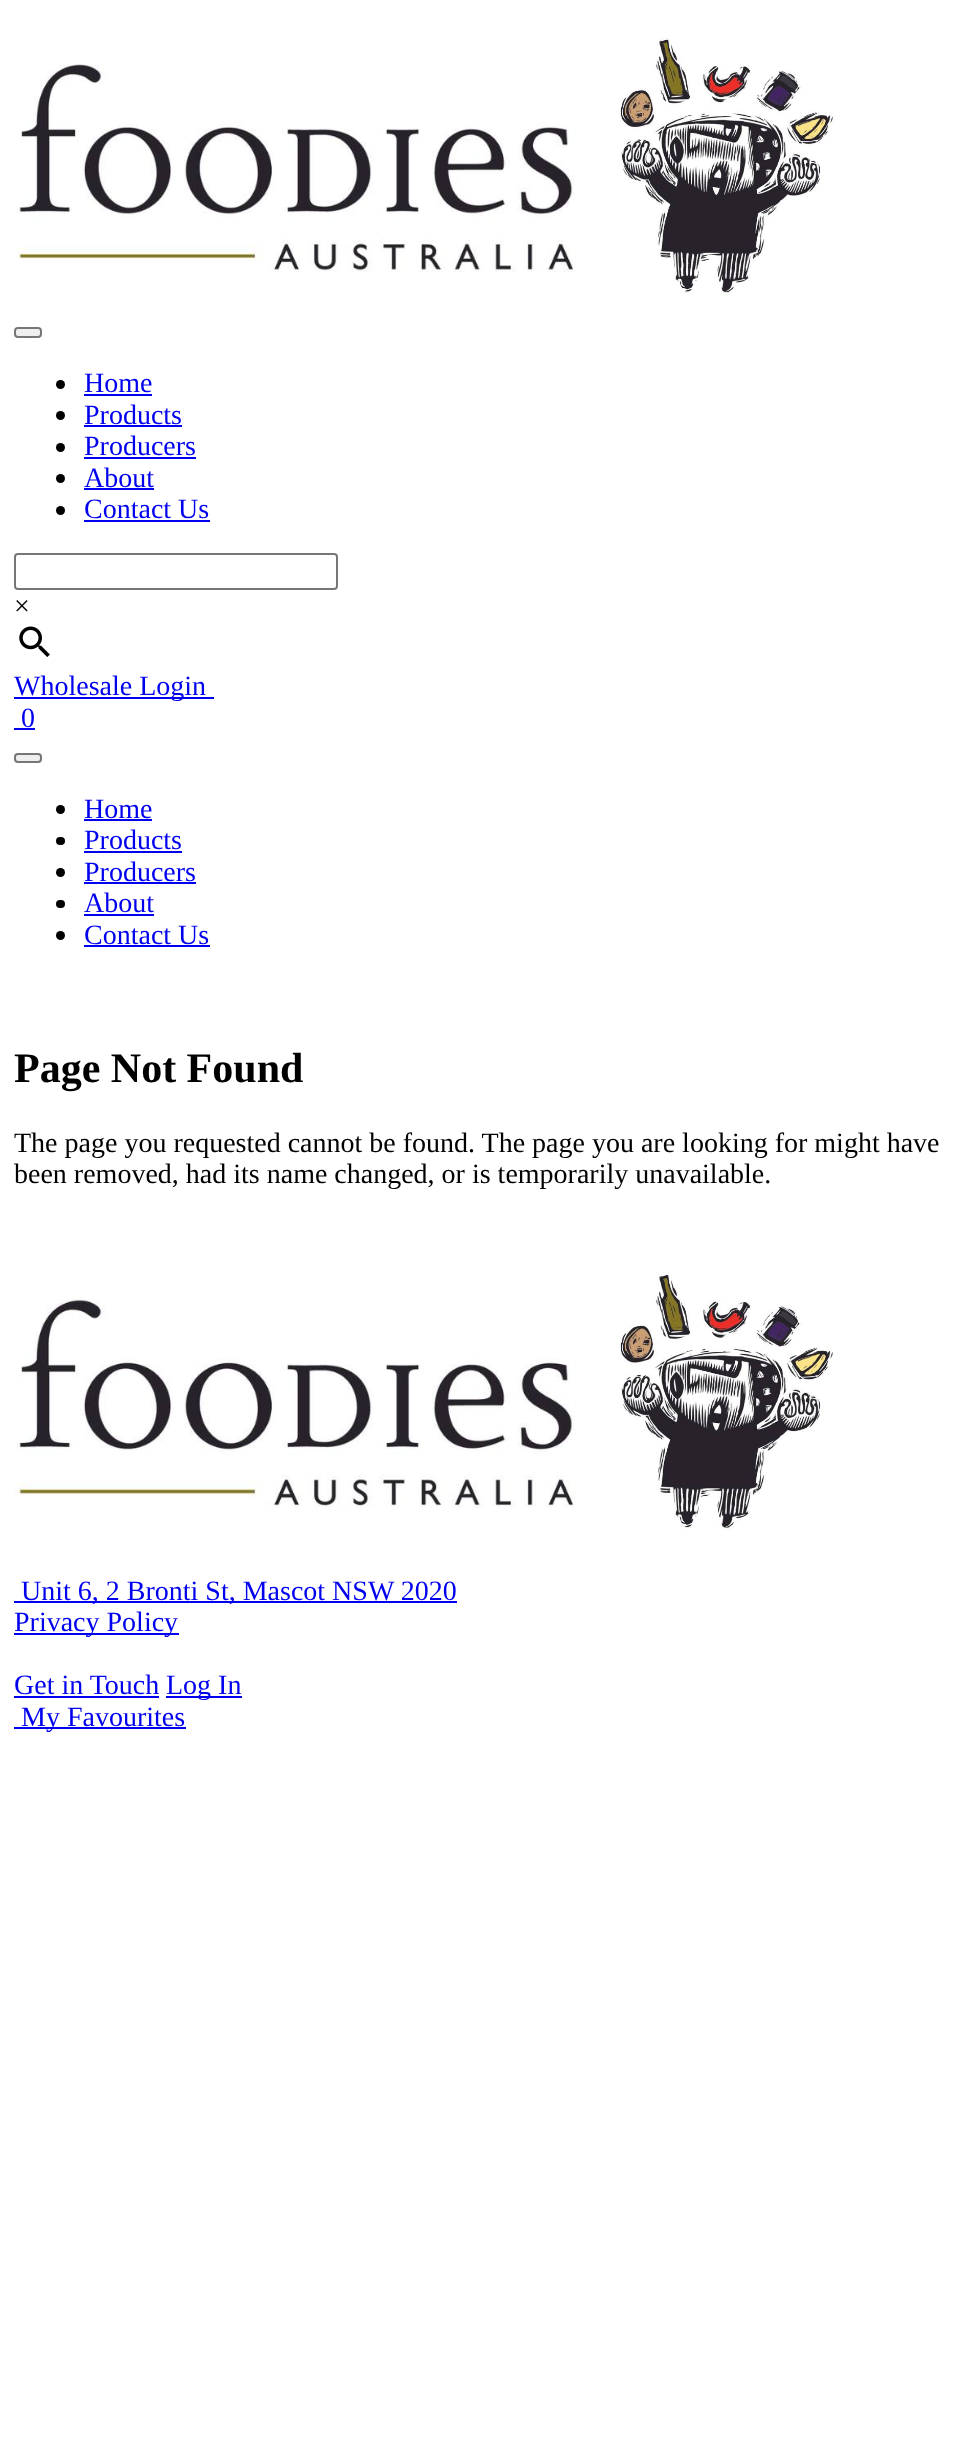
<svg xmlns="http://www.w3.org/2000/svg" width="970" height="2452" viewBox="0 0 970 2452">
  <rect width="100%" height="100%" fill="rgb(255,255,255)"/>
  <image x="15" y="37" width="820" height="257" href="pic1.png"/>
  <rect x="15" y="328" width="26" height="9" rx="3" fill="rgb(239,239,239)" stroke="rgb(118,118,118)" stroke-width="2"/>
  <circle cx="60.5" cy="384.5" r="4.5" fill="rgb(0,0,0)"/>
  <text x="84" y="392" font-family="Liberation Serif" font-size="28" fill="rgb(0,0,238)">Home</text>
  <rect x="84" y="394" width="68" height="2" fill="rgb(0,0,238)"/>
  <circle cx="60.5" cy="415.5" r="4.5" fill="rgb(0,0,0)"/>
  <text x="84" y="424" font-family="Liberation Serif" font-size="28" fill="rgb(0,0,238)">Products</text>
  <rect x="84" y="425" width="98" height="2" fill="rgb(0,0,238)"/>
  <circle cx="60.5" cy="447.5" r="4.5" fill="rgb(0,0,0)"/>
  <text x="84" y="455" font-family="Liberation Serif" font-size="28" fill="rgb(0,0,238)">Producers</text>
  <rect x="84" y="457" width="112" height="2" fill="rgb(0,0,238)"/>
  <circle cx="60.5" cy="478.5" r="4.5" fill="rgb(0,0,0)"/>
  <text x="84" y="487" font-family="Liberation Serif" font-size="28" fill="rgb(0,0,238)">About</text>
  <rect x="84" y="488" width="70" height="2" fill="rgb(0,0,238)"/>
  <circle cx="60.5" cy="510.5" r="4.5" fill="rgb(0,0,0)"/>
  <text x="84" y="518" font-family="Liberation Serif" font-size="28" fill="rgb(0,0,238)">Contact Us</text>
  <rect x="84" y="520" width="126" height="2" fill="rgb(0,0,238)"/>
  <rect x="15" y="554" width="322" height="35" rx="3" fill="none" stroke="rgb(118,118,118)" stroke-width="2"/>
  <text x="14" y="615" font-family="Liberation Serif" font-size="28" fill="rgb(0,0,0)">×</text>
  <image x="19" y="626" width="31" height="31" href="pic2.png"/>
  <rect x="14" y="697" width="200" height="2" fill="rgb(0,0,238)"/>
  <g font-family="Liberation Serif" font-size="28" fill="rgb(0,0,238)">
    <text x="14" y="695">Wholesale Login</text>
    <text x="21" y="727">0</text>
  </g>
  <rect x="14" y="728" width="21" height="2" fill="rgb(0,0,238)"/>
  <rect x="15" y="754" width="26" height="8" rx="3" fill="rgb(239,239,239)" stroke="rgb(118,118,118)" stroke-width="2"/>
  <circle cx="60.5" cy="809.5" r="4.5" fill="rgb(0,0,0)"/>
  <text x="84" y="818" font-family="Liberation Serif" font-size="28" fill="rgb(0,0,238)">Home</text>
  <rect x="84" y="819" width="68" height="2" fill="rgb(0,0,238)"/>
  <rect x="56" y="837" width="9" height="8" rx="4" fill="rgb(0,0,0)"/>
  <text x="84" y="849" font-family="Liberation Serif" font-size="28" fill="rgb(0,0,238)">Products</text>
  <rect x="84" y="851" width="98" height="2" fill="rgb(0,0,238)"/>
  <circle cx="60.5" cy="872.5" r="4.5" fill="rgb(0,0,0)"/>
  <text x="84" y="881" font-family="Liberation Serif" font-size="28" fill="rgb(0,0,238)">Producers</text>
  <rect x="84" y="882" width="112" height="2" fill="rgb(0,0,238)"/>
  <rect x="56" y="900" width="9" height="8" rx="4" fill="rgb(0,0,0)"/>
  <text x="84" y="912" font-family="Liberation Serif" font-size="28" fill="rgb(0,0,238)">About</text>
  <rect x="84" y="914" width="70" height="2" fill="rgb(0,0,238)"/>
  <circle cx="60.5" cy="935.5" r="4.5" fill="rgb(0,0,0)"/>
  <text x="84" y="944" font-family="Liberation Serif" font-size="28" fill="rgb(0,0,238)">Contact Us</text>
  <rect x="84" y="945" width="126" height="2" fill="rgb(0,0,238)"/>
  <text x="14" y="1082" font-family="Liberation Serif" font-size="42" font-weight="bold" fill="rgb(0,0,0)">Page Not Found</text>
  <g font-family="Liberation Serif" font-size="28" fill="rgb(0,0,0)">
    <text>
      <tspan x="14" y="1152">The page you requested cannot be found. The page you are looking for might have</tspan>
      <tspan x="14" y="1183">been removed, had its name changed, or is temporarily unavailable.</tspan>
    </text>
  </g>
  <image x="14" y="1272" width="820" height="258" href="pic3.png"/>
  <rect x="14" y="1601" width="443" height="2" fill="rgb(0,0,238)"/>
  <text x="21" y="1600" font-family="Liberation Serif" font-size="28" fill="rgb(0,0,238)">Unit 6, 2 Bronti St, Mascot NSW 2020</text>
  <rect x="14" y="1633" width="165" height="2" fill="rgb(0,0,238)"/>
  <g font-family="Liberation Serif" font-size="28" fill="rgb(0,0,238)">
    <text x="14" y="1631">Privacy Policy</text>
    <text x="14" y="1694">Get in Touch</text>
  </g>
  <rect x="14" y="1696" width="145" height="2" fill="rgb(0,0,238)"/>
  <rect x="166" y="1696" width="76" height="2" fill="rgb(0,0,238)"/>
  <text x="166" y="1694" font-family="Liberation Serif" font-size="28" fill="rgb(0,0,238)">Log In</text>
  <rect x="14" y="1727" width="172" height="2" fill="rgb(0,0,238)"/>
  <text x="21" y="1726" font-family="Liberation Serif" font-size="28" fill="rgb(0,0,238)">My Favourites</text>
</svg>
